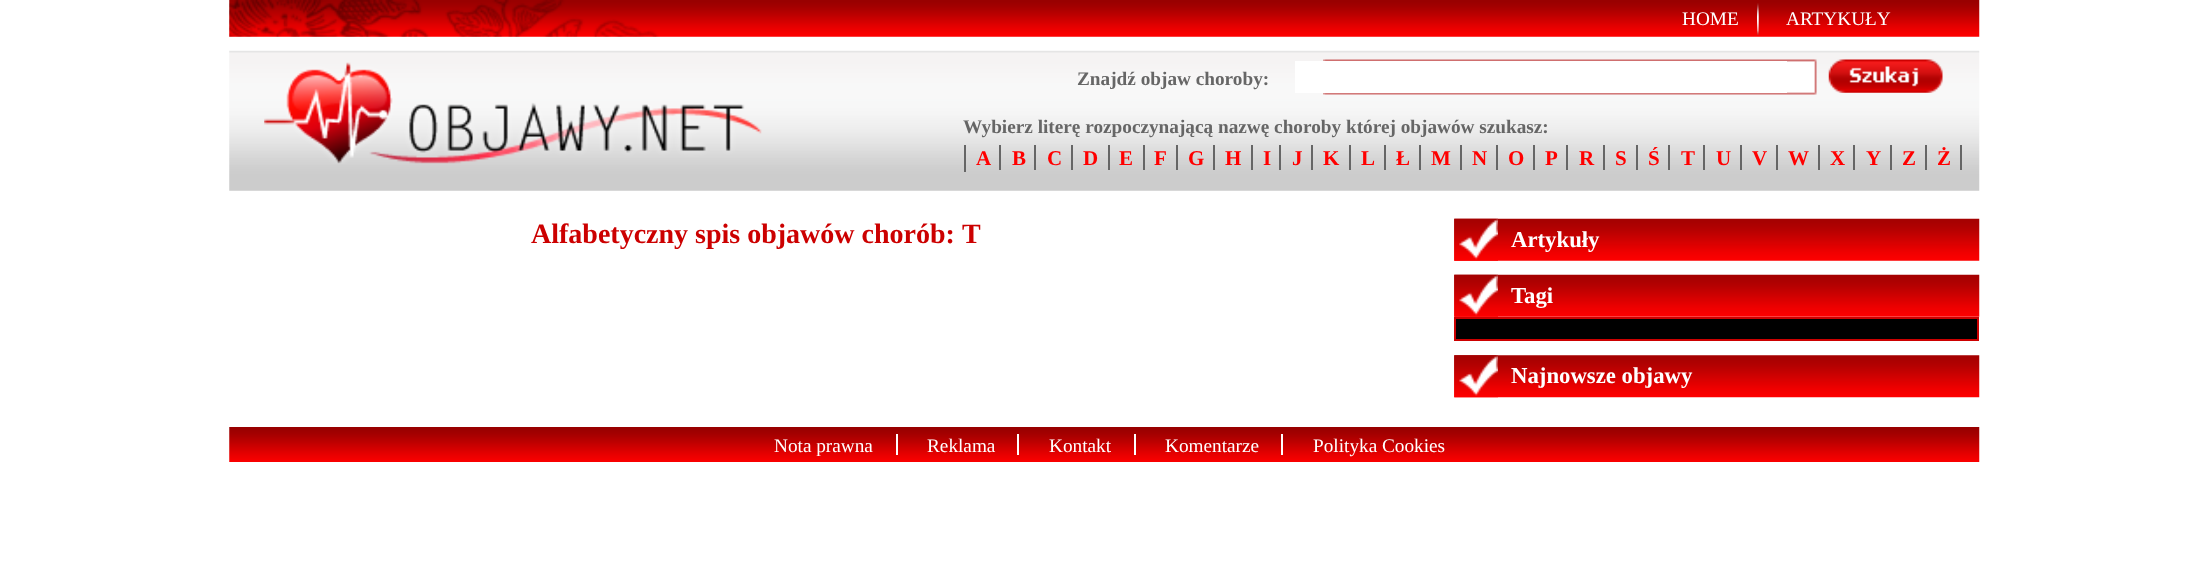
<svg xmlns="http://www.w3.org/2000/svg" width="2206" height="562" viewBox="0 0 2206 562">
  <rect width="100%" height="100%" fill="rgb(255,255,255)"/>
  <image x="229" y="0" width="1751" height="37" href="pic1.png"/>
  <image x="229" y="0" width="430" height="37" href="pic2.png"/>
  <text x="1682" y="25" font-family="Liberation Serif" font-size="19.25" fill="rgb(255,255,255)">HOME</text>
  <image x="1757" y="3" width="2" height="32" href="pic3.png"/>
  <text x="1786" y="25" font-family="Liberation Serif" font-size="19.25" fill="rgb(255,255,255)">ARTYKUŁY</text>
  <image x="229" y="50" width="1751" height="141" href="pic4.png"/>
  <image x="264" y="62" width="498" height="102" href="pic5.png"/>
  <image x="1323" y="59" width="494" height="36" href="pic6.png"/>
  <text x="1077" y="85" font-family="Liberation Serif" font-size="19.25" font-weight="bold" fill="rgb(102,102,102)">Znajdź objaw choroby:</text>
  <rect x="1295" y="61" width="492" height="32" fill="rgb(255,255,255)"/>
  <image x="1828" y="59" width="115" height="34" href="pic7.png"/>
  <text x="963" y="133" font-family="Liberation Serif" font-size="19.25" font-weight="bold" fill="rgb(102,102,102)">Wybierz literę rozpoczynającą nazwę choroby której objawów szukasz:</text>
  <rect x="964" y="145" width="2" height="27" fill="rgb(102,102,102)"/>
  <text x="976" y="165" font-family="Liberation Serif" font-size="21" font-weight="bold" fill="rgb(255,0,0)">A</text>
  <rect x="999" y="145" width="2" height="25" fill="rgb(102,102,102)"/>
  <text x="1012" y="165" font-family="Liberation Serif" font-size="21" font-weight="bold" fill="rgb(255,0,0)">B</text>
  <rect x="1034" y="145" width="2" height="25" fill="rgb(102,102,102)"/>
  <text x="1047" y="165" font-family="Liberation Serif" font-size="21" font-weight="bold" fill="rgb(255,0,0)">C</text>
  <rect x="1071" y="145" width="2" height="25" fill="rgb(102,102,102)"/>
  <text x="1083" y="165" font-family="Liberation Serif" font-size="21" font-weight="bold" fill="rgb(255,0,0)">D</text>
  <rect x="1108" y="145" width="2" height="25" fill="rgb(102,102,102)"/>
  <text x="1119" y="165" font-family="Liberation Serif" font-size="21" font-weight="bold" fill="rgb(255,0,0)">E</text>
  <rect x="1143" y="145" width="2" height="25" fill="rgb(102,102,102)"/>
  <text x="1154" y="165" font-family="Liberation Serif" font-size="21" font-weight="bold" fill="rgb(255,0,0)">F</text>
  <rect x="1176" y="145" width="2" height="25" fill="rgb(102,102,102)"/>
  <text x="1188" y="165" font-family="Liberation Serif" font-size="21" font-weight="bold" fill="rgb(255,0,0)">G</text>
  <rect x="1213" y="145" width="2" height="25" fill="rgb(102,102,102)"/>
  <text x="1225" y="165" font-family="Liberation Serif" font-size="21" font-weight="bold" fill="rgb(255,0,0)">H</text>
  <rect x="1251" y="145" width="2" height="25" fill="rgb(102,102,102)"/>
  <text x="1263" y="165" font-family="Liberation Serif" font-size="21" font-weight="bold" fill="rgb(255,0,0)">I</text>
  <rect x="1279" y="145" width="2" height="25" fill="rgb(102,102,102)"/>
  <text x="1292" y="165" font-family="Liberation Serif" font-size="21" font-weight="bold" fill="rgb(255,0,0)">J</text>
  <rect x="1311" y="145" width="2" height="25" fill="rgb(102,102,102)"/>
  <text x="1323" y="165" font-family="Liberation Serif" font-size="21" font-weight="bold" fill="rgb(255,0,0)">K</text>
  <rect x="1349" y="145" width="2" height="25" fill="rgb(102,102,102)"/>
  <text x="1361" y="165" font-family="Liberation Serif" font-size="21" font-weight="bold" fill="rgb(255,0,0)">L</text>
  <rect x="1384" y="145" width="2" height="25" fill="rgb(102,102,102)"/>
  <text x="1396" y="165" font-family="Liberation Serif" font-size="21" font-weight="bold" fill="rgb(255,0,0)">Ł</text>
  <rect x="1419" y="145" width="2" height="25" fill="rgb(102,102,102)"/>
  <text x="1431" y="165" font-family="Liberation Serif" font-size="21" font-weight="bold" fill="rgb(255,0,0)">M</text>
  <rect x="1460" y="145" width="2" height="25" fill="rgb(102,102,102)"/>
  <text x="1472" y="165" font-family="Liberation Serif" font-size="21" font-weight="bold" fill="rgb(255,0,0)">N</text>
  <rect x="1496" y="145" width="2" height="25" fill="rgb(102,102,102)"/>
  <text x="1508" y="165" font-family="Liberation Serif" font-size="21" font-weight="bold" fill="rgb(255,0,0)">O</text>
  <rect x="1533" y="145" width="2" height="25" fill="rgb(102,102,102)"/>
  <text x="1545" y="165" font-family="Liberation Serif" font-size="21" font-weight="bold" fill="rgb(255,0,0)">P</text>
  <rect x="1566" y="145" width="2" height="25" fill="rgb(102,102,102)"/>
  <text x="1579" y="165" font-family="Liberation Serif" font-size="21" font-weight="bold" fill="rgb(255,0,0)">R</text>
  <rect x="1603" y="145" width="2" height="25" fill="rgb(102,102,102)"/>
  <text x="1615" y="165" font-family="Liberation Serif" font-size="21" font-weight="bold" fill="rgb(255,0,0)">S</text>
  <rect x="1636" y="145" width="2" height="25" fill="rgb(102,102,102)"/>
  <text x="1648" y="165" font-family="Liberation Serif" font-size="21" font-weight="bold" fill="rgb(255,0,0)">Ś</text>
  <rect x="1668" y="145" width="2" height="25" fill="rgb(102,102,102)"/>
  <text x="1681" y="165" font-family="Liberation Serif" font-size="21" font-weight="bold" fill="rgb(255,0,0)">T</text>
  <rect x="1703" y="145" width="2" height="25" fill="rgb(102,102,102)"/>
  <text x="1716" y="165" font-family="Liberation Serif" font-size="21" font-weight="bold" fill="rgb(255,0,0)">U</text>
  <rect x="1740" y="145" width="2" height="25" fill="rgb(102,102,102)"/>
  <text x="1752" y="165" font-family="Liberation Serif" font-size="21" font-weight="bold" fill="rgb(255,0,0)">V</text>
  <rect x="1776" y="145" width="2" height="25" fill="rgb(102,102,102)"/>
  <text x="1788" y="165" font-family="Liberation Serif" font-size="21" font-weight="bold" fill="rgb(255,0,0)">W</text>
  <rect x="1818" y="145" width="2" height="25" fill="rgb(102,102,102)"/>
  <text x="1830" y="165" font-family="Liberation Serif" font-size="21" font-weight="bold" fill="rgb(255,0,0)">X</text>
  <rect x="1853" y="145" width="2" height="25" fill="rgb(102,102,102)"/>
  <text x="1866" y="165" font-family="Liberation Serif" font-size="21" font-weight="bold" fill="rgb(255,0,0)">Y</text>
  <rect x="1890" y="145" width="2" height="25" fill="rgb(102,102,102)"/>
  <text x="1902" y="165" font-family="Liberation Serif" font-size="21" font-weight="bold" fill="rgb(255,0,0)">Z</text>
  <rect x="1925" y="145" width="2" height="25" fill="rgb(102,102,102)"/>
  <text x="1937" y="165" font-family="Liberation Serif" font-size="21" font-weight="bold" fill="rgb(255,0,0)">Ż</text>
  <rect x="1960" y="145" width="2" height="25" fill="rgb(102,102,102)"/>
  <g font-family="Liberation Serif" font-size="28" font-weight="bold" fill="rgb(204,0,0)">
    <text x="531" y="243">Alfabetyczny spis objawów chorób:</text>
    <text x="962" y="243">T</text>
  </g>
  <image x="1454" y="218" width="526" height="43" href="pic8.png"/>
  <image x="1454" y="218" width="44" height="43" href="pic9.png"/>
  <text x="1511" y="247" font-family="Liberation Serif" font-size="22.75" font-weight="bold" fill="rgb(255,255,255)">Artykuły</text>
  <image x="1454" y="274" width="526" height="43" href="pic10.png"/>
  <image x="1454" y="274" width="44" height="43" href="pic11.png"/>
  <text x="1511" y="303" font-family="Liberation Serif" font-size="22.75" font-weight="bold" fill="rgb(255,255,255)">Tagi</text>
  <rect x="1455" y="318" width="523" height="22" fill="rgb(0,0,0)" stroke="rgb(204,0,0)" stroke-width="2"/>
  <image x="1454" y="355" width="526" height="43" href="pic12.png"/>
  <image x="1454" y="355" width="44" height="43" href="pic13.png"/>
  <text x="1511" y="383" font-family="Liberation Serif" font-size="22.75" font-weight="bold" fill="rgb(255,255,255)">Najnowsze objawy</text>
  <image x="229" y="427" width="1751" height="35" href="pic14.png"/>
  <g font-family="Liberation Serif" font-size="19.25" fill="rgb(255,255,255)">
    <text x="774" y="452">Nota prawna</text>
    <text x="927" y="452">Reklama</text>
  </g>
  <rect x="896" y="434" width="2" height="21" fill="rgb(255,255,255)"/>
  <text x="1049" y="452" font-family="Liberation Serif" font-size="19.25" fill="rgb(255,255,255)">Kontakt</text>
  <rect x="1017" y="434" width="2" height="21" fill="rgb(255,255,255)"/>
  <text x="1165" y="452" font-family="Liberation Serif" font-size="19.25" fill="rgb(255,255,255)">Komentarze</text>
  <rect x="1134" y="434" width="2" height="21" fill="rgb(255,255,255)"/>
  <text x="1313" y="452" font-family="Liberation Serif" font-size="19.25" fill="rgb(255,255,255)">Polityka Cookies</text>
  <rect x="1281" y="434" width="2" height="21" fill="rgb(255,255,255)"/>
</svg>
